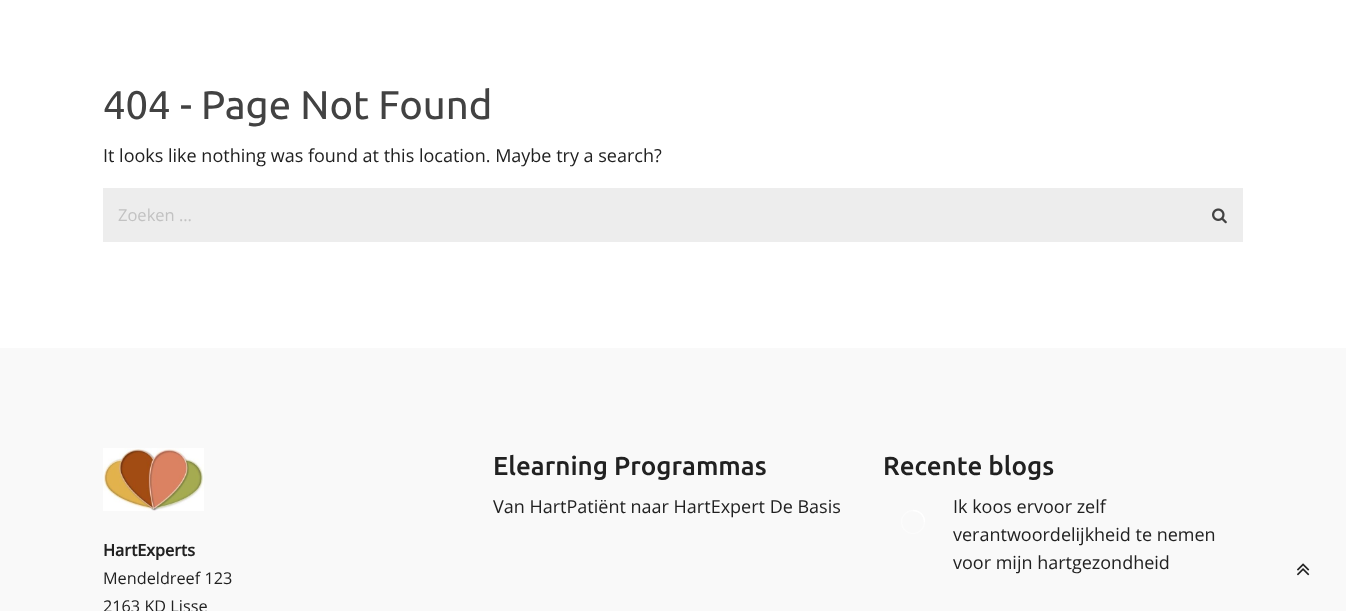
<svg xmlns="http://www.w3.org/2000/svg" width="1346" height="611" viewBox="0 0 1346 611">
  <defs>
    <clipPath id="clip1"><rect x="901" y="510" width="24" height="24"/></clipPath>
  </defs>
  <rect width="100%" height="100%" fill="rgb(255,255,255)"/>
  <text x="103" y="119" font-family="Ubuntu" font-size="40" fill="rgb(66,66,66)">404 - Page Not Found</text>
  <text x="103" y="162" font-family="Open Sans" font-size="18" fill="rgb(33,33,33)">It looks like nothing was found at this location. Maybe try a search?</text>
  <rect x="103" y="188" width="1140" height="54" fill="rgb(237,237,237)"/>
  <text x="118" y="221" font-family="Open Sans" font-size="16.5" fill="rgb(194,194,194)">Zoeken …</text>
  <image x="1212" y="208" width="15" height="16" href="pic1.png"/>
  <rect x="0" y="348" width="1346" height="263" fill="rgb(249,249,249)"/>
  <image x="103" y="448" width="101" height="63" href="pic2.png"/>
  <text x="103" y="556" font-family="Open Sans" font-size="16.25" font-weight="bold" fill="rgb(33,33,33)">HartExperts</text>
  <g font-family="Open Sans" font-size="16.25" fill="rgb(33,33,33)">
    <text>
      <tspan x="103" y="584">Mendeldreef 123</tspan>
      <tspan x="103" y="612">2163 KD Lisse</tspan>
    </text>
  </g>
  <text x="493" y="475" font-family="Ubuntu" font-size="26" font-weight="500" fill="rgb(33,33,33)">Elearning Programmas</text>
  <text x="493" y="513" font-family="Open Sans" font-size="18" fill="rgb(33,33,33)">Van HartPatiënt naar HartExpert De Basis</text>
  <text x="883" y="475" font-family="Ubuntu" font-size="26" font-weight="500" fill="rgb(33,33,33)">Recente blogs</text>
  <g clip-path="url(#clip1)">
    <circle cx="913" cy="522" r="11.5" fill="none" stroke="rgb(252,252,252)" stroke-width="1.3"/>
  </g>
  <path d="M924.5 522C924.5 515.5 919.5 510.5 913 510.5" fill="none" stroke="rgb(255,255,255)" stroke-width="1.3"/>
  <g font-family="Open Sans" font-size="18" fill="rgb(33,33,33)">
    <text>
      <tspan x="953" y="513">Ik koos ervoor zelf</tspan>
      <tspan x="953" y="541">verantwoordelijkheid te nemen</tspan>
      <tspan x="953" y="569">voor mijn hartgezondheid</tspan>
    </text>
  </g>
  <image x="1297" y="563" width="13" height="13" href="pic3.png"/>
</svg>
